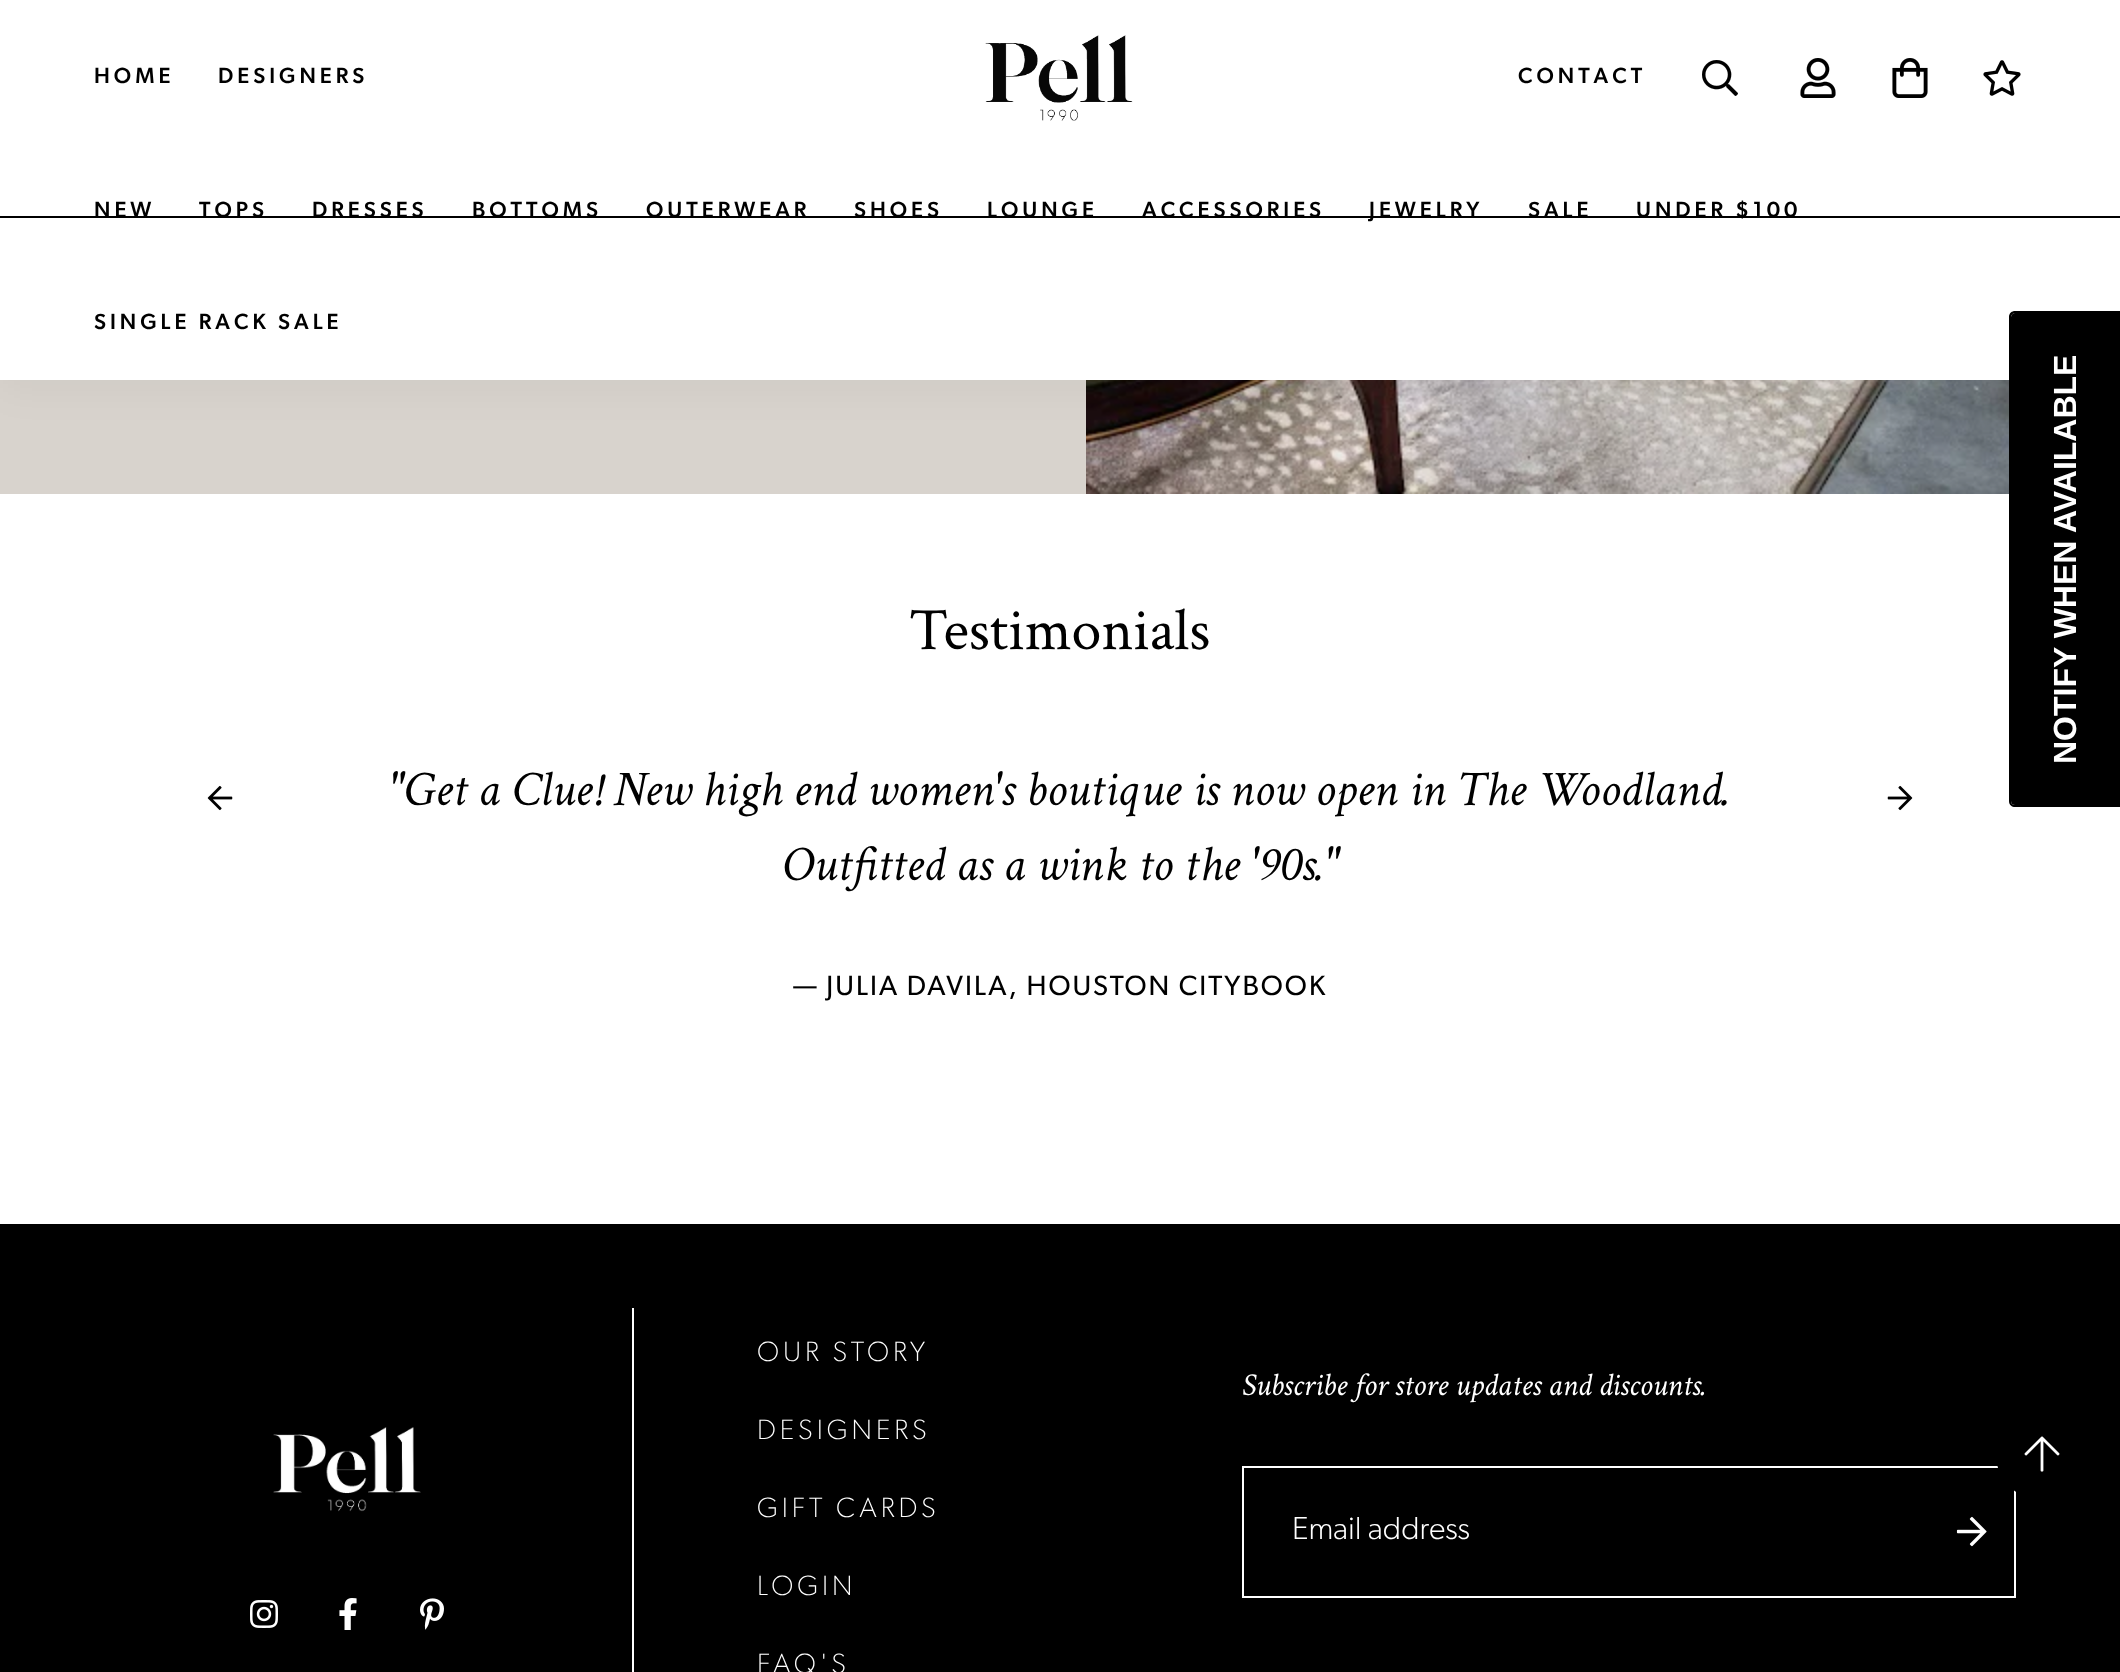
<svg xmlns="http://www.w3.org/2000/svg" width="2120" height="1672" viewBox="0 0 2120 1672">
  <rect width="100%" height="100%" fill="rgb(255,255,255)"/>
  <rect x="0" y="380" width="1086" height="114" fill="rgb(216,211,205)"/>
  <image x="1086" y="380" width="923" height="114" href="pic6.png"/>
  <rect x="0" y="8" width="2120" height="380" fill="rgba(0,0,0,0.04)" filter="blur(20px)"/>
  <rect x="0" y="0" width="2120" height="380" fill="rgb(255,255,255)"/>
  <g font-family="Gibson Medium" font-size="22" font-weight="500" letter-spacing="4" fill="rgb(0,0,0)">
    <text x="94" y="83">HOME</text>
    <text x="218" y="83">DESIGNERS</text>
  </g>
  <image x="985" y="35" width="148" height="86" href="pic1.png"/>
  <text x="1518" y="83" font-family="Gibson Medium" font-size="22" font-weight="500" letter-spacing="4" fill="rgb(0,0,0)">CONTACT</text>
  <image x="1702" y="60" width="36" height="36" href="pic2.png"/>
  <image x="1800" y="58" width="36" height="40" href="pic3.png"/>
  <image x="1892" y="58" width="36" height="40" href="pic4.png"/>
  <image x="1983" y="60" width="38" height="36" href="pic5.png"/>
  <rect x="0" y="216" width="2120" height="2" fill="rgb(0,0,0)"/>
  <g font-family="Gibson Medium" font-size="22" font-weight="500" letter-spacing="4" fill="rgb(0,0,0)">
    <text x="94" y="217">NEW</text>
    <text x="199" y="217">TOPS</text>
    <text x="312" y="217">DRESSES</text>
    <text x="472" y="217">BOTTOMS</text>
    <text x="646" y="217">OUTERWEAR</text>
    <text x="854" y="217">SHOES</text>
    <text x="987" y="217">LOUNGE</text>
    <text x="1142" y="217">ACCESSORIES</text>
    <text x="1369" y="217">JEWELRY</text>
    <text x="1528" y="217">SALE</text>
    <text x="1636" y="217">UNDER $100</text>
    <text x="94" y="329">SINGLE RACK SALE</text>
  </g>
  <path d="M2011 801V317C2011 315 2013 313 2015 313H2120V805H2015C2013 805 2011 804 2011 801Z" fill="rgb(0,0,0)"/>
  <path d="M2009 801V317C2009 313 2012 311 2015 311H2120V807H2015C2012 807 2009 805 2009 801ZM2011 801V317C2011 315 2013 313 2015 313H2120V805H2015C2013 805 2011 804 2011 801Z" fill="rgb(0,0,0)" fill-rule="evenodd"/>
  <text x="2076" y="764" transform="rotate(-90 2076 764)" font-family="Liberation Sans" font-size="32" font-weight="bold" fill="rgb(255,255,255)">NOTIFY WHEN AVAILABLE</text>
  <text x="909" y="649" font-family="Crimson Text" font-size="60" fill="rgb(0,0,0)">Testimonials</text>
  <g font-family="Crimson Text" font-size="50" font-style="italic" fill="rgb(0,0,0)">
    <text x="389" y="805">"Get a Clue! New high end women's boutique is now open in The Woodland.</text>
    <text x="782" y="880">Outfitted as a wink to the '90s."</text>
  </g>
  <text x="793" y="995" font-family="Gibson" font-size="28" letter-spacing="2" fill="rgb(0,0,0)">— JULIA DAVILA, HOUSTON CITYBOOK</text>
  <image x="207" y="785" width="26" height="26" href="pic7.png"/>
  <image x="1887" y="785" width="26" height="26" href="pic8.png"/>
  <rect x="0" y="1224" width="2120" height="448" fill="rgb(0,0,0)"/>
  <rect x="632" y="1308" width="2" height="364" fill="rgb(255,255,255)"/>
  <image x="273" y="1427" width="148" height="85" href="pic9.png"/>
  <image x="250" y="1600" width="28" height="28" href="pic10.png"/>
  <image x="339" y="1598" width="18" height="32" href="pic11.png"/>
  <image x="420" y="1598" width="24" height="32" href="pic12.png"/>
  <g font-family="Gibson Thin" font-size="28" font-weight="100" letter-spacing="4" fill="rgb(255,255,255)">
    <text x="757" y="1361">OUR STORY</text>
    <text x="757" y="1439">DESIGNERS</text>
    <text x="757" y="1517">GIFT CARDS</text>
    <text x="757" y="1595">LOGIN</text>
    <text x="757" y="1673">FAQ'S</text>
  </g>
  <text x="1242" y="1395" font-family="Crimson Text" font-size="32" font-style="italic" fill="rgb(255,255,255)">Subscribe for store updates and discounts.</text>
  <rect x="1243" y="1467" width="772" height="130" fill="none" stroke="rgb(255,255,255)" stroke-width="2"/>
  <text x="1292" y="1539" font-family="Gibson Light" font-size="32" font-weight="300" fill="rgb(255,255,255)">Email address</text>
  <image x="1956" y="1516" width="31" height="31" href="pic13.png"/>
  <circle cx="2042" cy="1454" r="45" fill="rgb(0,0,0)" stroke="rgb(0,0,0)" stroke-width="2"/>
  <image x="2024" y="1436" width="36" height="36" href="pic14.png"/>
</svg>
